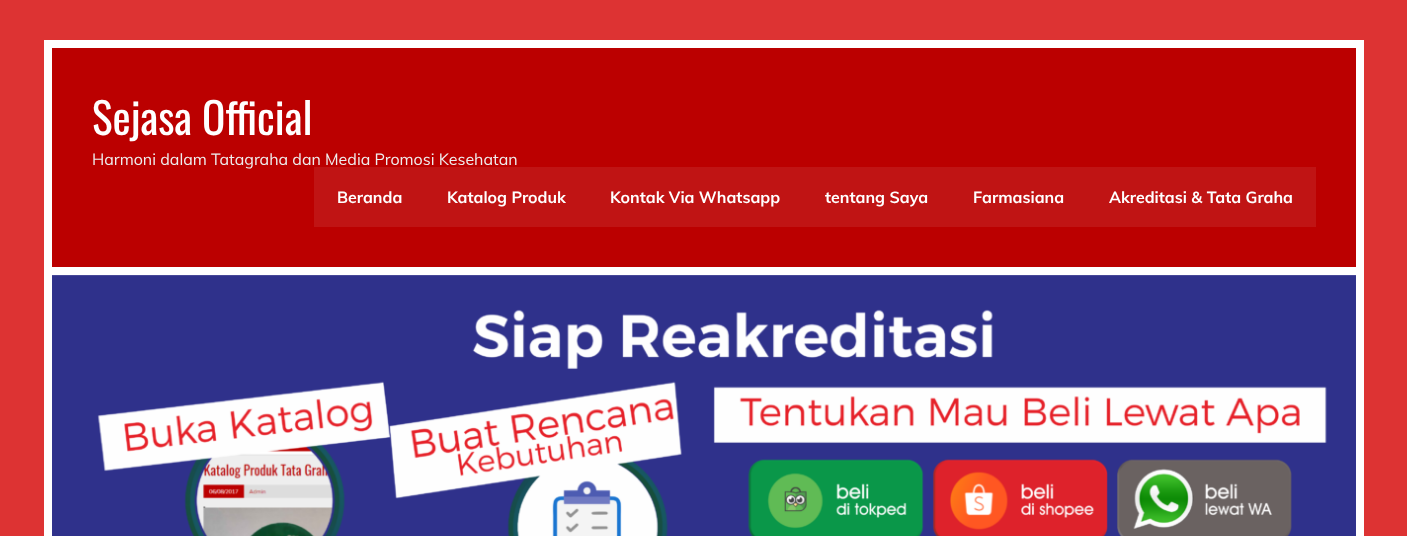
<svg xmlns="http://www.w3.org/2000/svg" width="1407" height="536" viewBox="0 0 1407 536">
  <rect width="100%" height="100%" fill="rgb(221,51,51)"/>
  <rect x="44" y="40" width="1320" height="496" fill="rgb(255,255,255)"/>
  <rect x="52" y="48" width="1304" height="219" fill="rgb(187,0,0)"/>
  <text x="92" y="135" font-family="Oswald" font-size="43.25" fill="rgb(255,255,255)">Sejasa Official</text>
  <text x="92" y="165" font-family="Muli" font-size="16" fill="rgb(238,238,238)">Harmoni dalam Tatagraha dan Media Promosi Kesehatan</text>
  <rect x="314" y="167" width="1002" height="60" fill="rgb(192,20,20)"/>
  <g font-family="Muli" font-size="16" font-weight="bold" fill="rgb(255,255,255)">
    <text x="337" y="203">Beranda</text>
    <text x="447" y="203">Katalog Produk</text>
    <text x="610" y="203">Kontak Via Whatsapp</text>
    <text x="825" y="203">tentang Saya</text>
    <text x="973" y="203">Farmasiana</text>
    <text x="1109" y="203">Akreditasi &amp; Tata Graha</text>
  </g>
  <image x="52" y="275" width="1304" height="261" href="pic1.png"/>
</svg>
